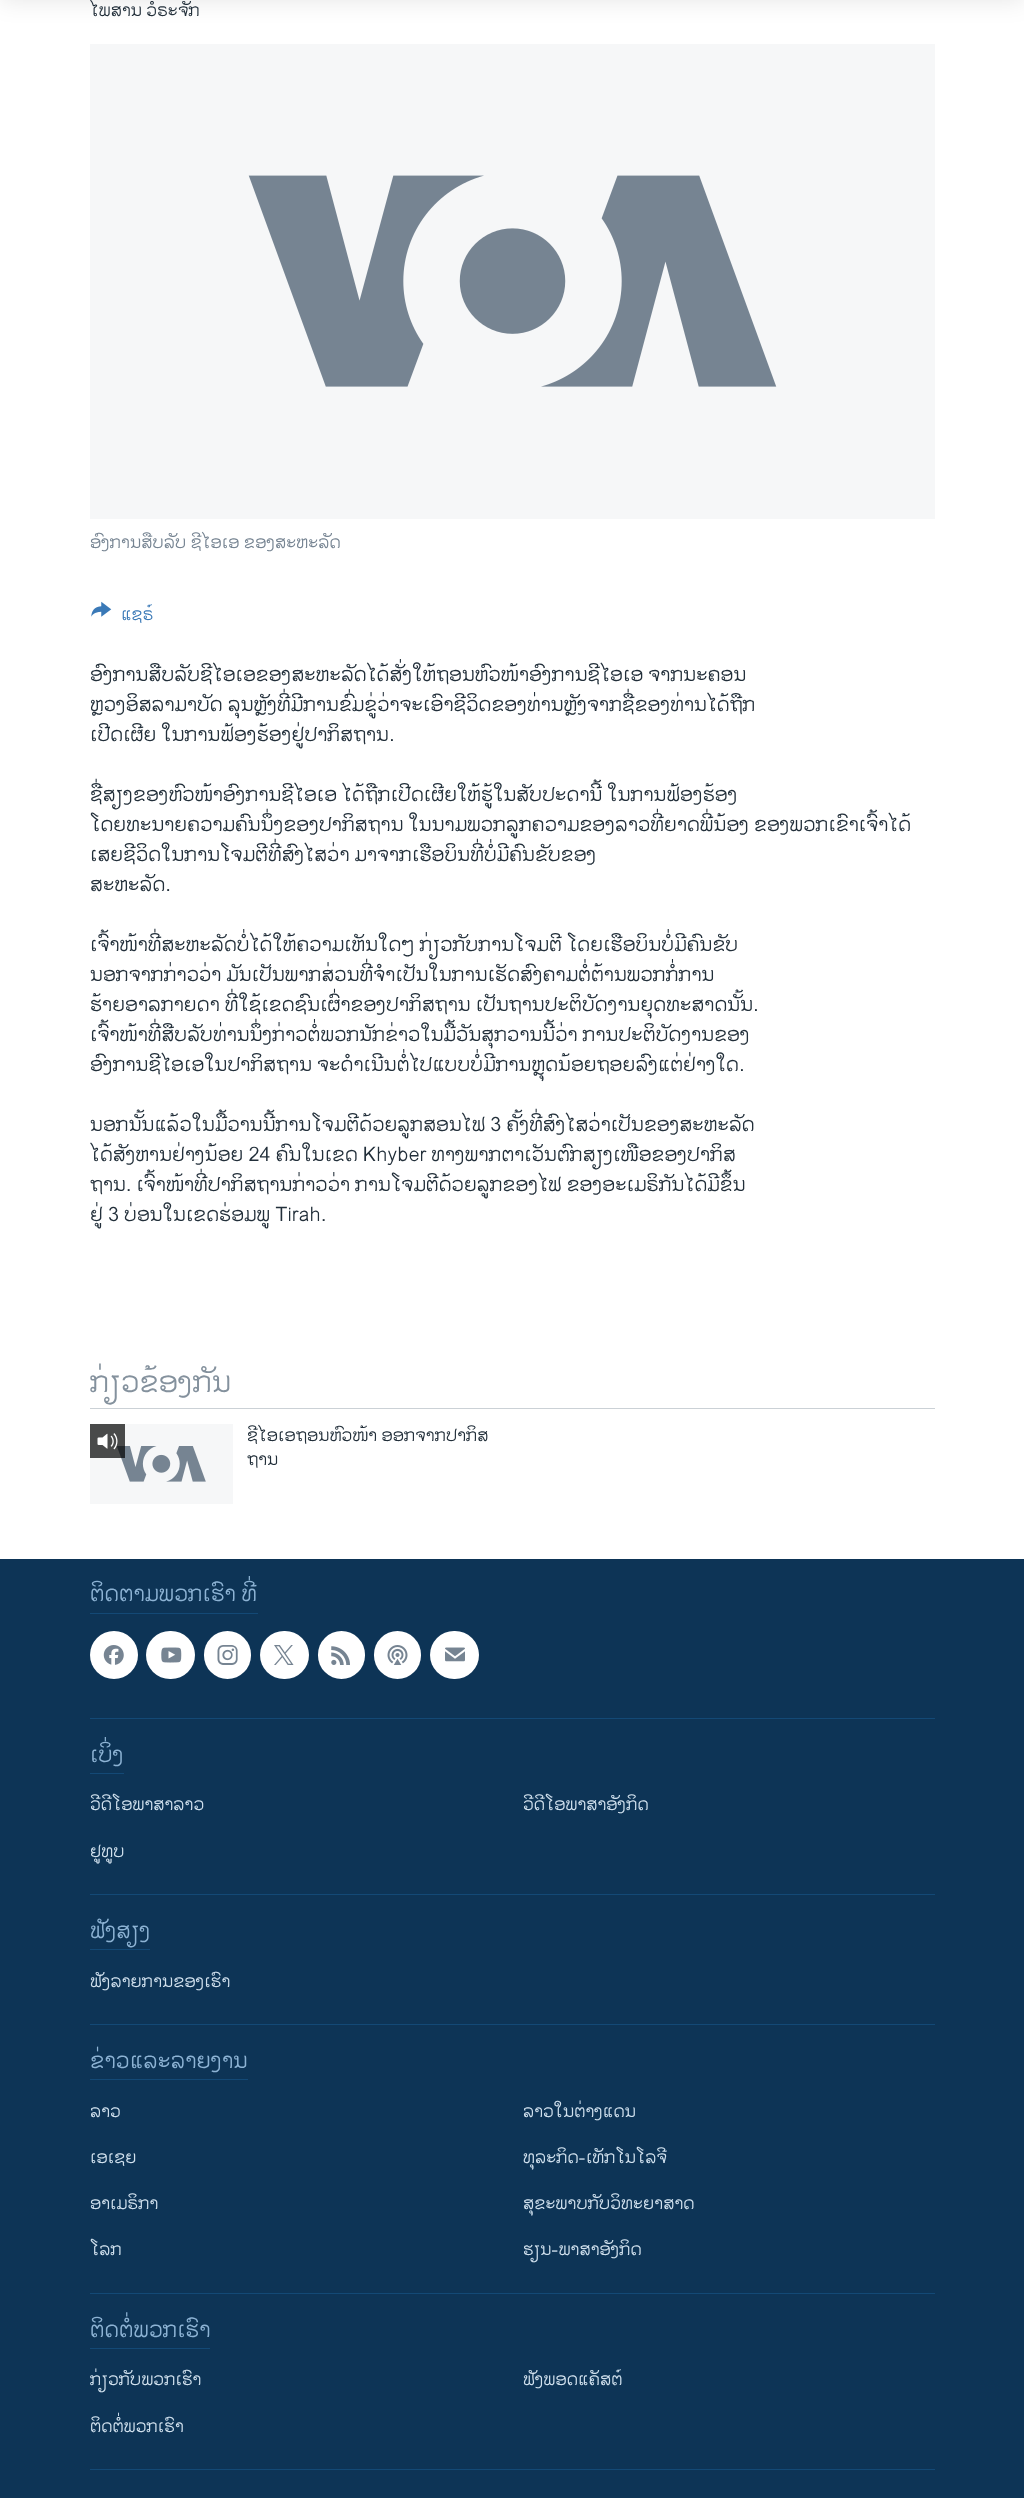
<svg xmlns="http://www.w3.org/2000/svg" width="1024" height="2498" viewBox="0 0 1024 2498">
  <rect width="100%" height="100%" fill="rgb(255,255,255)"/>
  <rect x="0" y="-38" width="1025" height="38" fill="rgba(0,0,0,0.1)" filter="blur(12.5px)"/>
  <text x="90" y="16" font-family="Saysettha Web" font-size="17.5" fill="rgb(34,47,58)">ໄພສານ ວໍຣະຈັກ</text>
  <rect x="90" y="44" width="845" height="475" fill="rgb(246,247,248)"/>
  <image x="248" y="175" width="529" height="212" href="pic1.png"/>
  <text x="90" y="548" font-family="Saysettha Web" font-size="17.5" fill="rgb(118,132,146)">ອົງການສືບລັບ ຊີໄອເອ ຂອງສະຫະລັດ</text>
  <image x="91" y="601" width="21" height="16" href="pic2.png"/>
  <text x="121" y="620" font-family="Saysettha Web" font-size="17.5" fill="rgb(58,121,183)">ແຊຣ໌</text>
  <g font-family="Saysettha Web" font-size="20" fill="rgb(34,47,58)">
    <text>
      <tspan x="90" y="681">ອົງການສືບລັບຊີໄອເອຂອງສະຫະລັດໄດ້ສັ່ງໃຫ້ຖອນຫົວໜ້າອົງການຊີໄອເອ ຈາກນະຄອນ</tspan>
      <tspan x="90" y="711">ຫຼວງອິສລາມາບັດ ລຸນຫຼັງທີ່ມີການຂົ່ມຂູ່ວ່າຈະເອົາຊີວິດຂອງທ່ານຫຼັງຈາກຊື່ຂອງທ່ານໄດ້ຖືກ</tspan>
      <tspan x="90" y="741">ເປີດເຜີຍ ໃນການຟ້ອງຮ້ອງຢູ່ປາກິສຖານ.</tspan>
    </text>
    <text>
      <tspan x="90" y="801">ຊື່ສຽງຂອງຫົວໜ້າອົງການຊີໄອເອ ໄດ້ຖືກເປີດເຜີຍໃຫ້ຮູ້ໃນສັບປະດານີ້ ໃນການຟ້ອງຮ້ອງ</tspan>
      <tspan x="90" y="831">ໂດຍທະນາຍຄວາມຄົນນຶ່ງຂອງປາກິສຖານ ໃນນາມພວກລູກຄວາມຂອງລາວທີ່ຍາດພີ່ນ້ອງ ຂອງພວກເຂົາເຈົ້າໄດ້</tspan>
      <tspan x="90" y="861">ເສຍຊີວິດໃນການໂຈມຕີທີ່ສົງໄສວ່າ ມາຈາກເຮືອບິນທີ່ບໍ່ມີຄົນຂັບຂອງ</tspan>
      <tspan x="90" y="891">ສະຫະລັດ.</tspan>
    </text>
    <text>
      <tspan x="90" y="951">ເຈົ້າໜ້າທີ່ສະຫະລັດບໍ່ໄດ້ໃຫ້ຄວາມເຫັນໃດໆ ກ່ຽວກັບການໂຈມຕີ ໂດຍເຮືອບິນບໍ່ມີຄົນຂັບ</tspan>
      <tspan x="90" y="981">ນອກຈາກກ່າວວ່າ ມັນເປັນພາກສ່ວນທີ່ຈຳເປັນໃນການເຮັດສົງຄາມຕໍ່ຕ້ານພວກກໍ່ການ</tspan>
      <tspan x="90" y="1011">ຮ້າຍອາລກາຍດາ ທີ່ໃຊ້ເຂດຊົນເຜົ່າຂອງປາກິສຖານ ເປັນຖານປະຕິບັດງານຍຸດທະສາດນັ້ນ.</tspan>
      <tspan x="90" y="1041">ເຈົ້າໜ້າທີ່ສືບລັບທ່ານນຶ່ງກ່າວຕໍ່ພວກນັກຂ່າວໃນມື້ວັນສຸກວານນີ້ວ່າ ການປະຕິບັດງານຂອງ</tspan>
      <tspan x="90" y="1071">ອົງການຊີໄອເອໃນປາກິສຖານ ຈະດຳເນີນຕໍ່ໄປແບບບໍ່ມີການຫຼຸດນ້ອຍຖອຍລົງແຕ່ຢ່າງໃດ.</tspan>
    </text>
    <text>
      <tspan x="90" y="1131">ນອກນັ້ນແລ້ວໃນມື້ວານນີ້ການໂຈມຕີດ້ວຍລູກສອນໄຟ 3 ຄັ້ງທີ່ສົງໄສວ່າເປັນຂອງສະຫະລັດ</tspan>
      <tspan x="90" y="1161">ໄດ້ສັງຫານຢ່າງນ້ອຍ 24 ຄົນໃນເຂດ Khyber ທາງພາກຕາເວັນຕົກສຽງເໜືອຂອງປາກິສ</tspan>
      <tspan x="90" y="1191">ຖານ. ເຈົ້າໜ້າທີ່ປາກິສຖານກ່າວວ່າ ການໂຈມຕີດ້ວຍລູກຂອງໄຟ ຂອງອະເມຣິກັນໄດ້ມີຂຶ້ນ</tspan>
      <tspan x="90" y="1221">ຢູ່ 3 ບ່ອນໃນເຂດຮ່ອມພູ Tirah.</tspan>
    </text>
  </g>
  <rect x="90" y="1408" width="845" height="1" fill="rgb(203,209,214)"/>
  <text x="90" y="1392" font-family="Saysettha Web" font-size="30" fill="rgb(132,145,157)">ກ່ຽວຂ້ອງກັນ</text>
  <rect x="90" y="1424" width="143" height="80" fill="rgb(246,247,248)"/>
  <image x="116" y="1446" width="90" height="36" href="pic3.png"/>
  <rect x="90" y="1424" width="35" height="34" fill="rgba(0,0,0,0.7)"/>
  <image x="97" y="1433" width="21" height="17" href="pic4.png"/>
  <g font-family="Saysettha Web" font-size="17.5" fill="rgb(34,47,58)">
    <text>
      <tspan x="247" y="1441">ຊີໄອເອຖອນຫົວໜ້າ ອອກຈາກປາກິສ</tspan>
      <tspan x="247" y="1465">ຖານ</tspan>
    </text>
  </g>
  <rect x="0" y="1559" width="1024" height="939" fill="rgb(13,52,86)"/>
  <rect x="90" y="1613" width="168" height="1" fill="rgb(19,73,118)"/>
  <text x="90" y="1601" font-family="Saysettha Web" font-size="22.5" fill="rgb(141,179,212)">ຕິດຕາມພວກເຮົາ ທີ່</text>
  <circle cx="114" cy="1655" r="24" fill="rgb(255,255,255)"/>
  <image x="103" y="1645" width="21" height="20" href="pic5.png"/>
  <rect x="146" y="1631" width="49" height="48" rx="24" fill="rgb(255,255,255)"/>
  <image x="161" y="1647" width="21" height="16" href="pic6.png"/>
  <rect x="204" y="1631" width="47" height="48" rx="23.5" fill="rgb(255,255,255)"/>
  <image x="217" y="1645" width="21" height="20" href="pic7.png"/>
  <rect x="260" y="1631" width="49" height="48" rx="24" fill="rgb(255,255,255)"/>
  <image x="274" y="1645" width="20" height="20" href="pic8.png"/>
  <rect x="318" y="1631" width="47" height="48" rx="23.5" fill="rgb(255,255,255)"/>
  <image x="331" y="1646" width="19" height="19" href="pic9.png"/>
  <rect x="374" y="1631" width="47" height="48" rx="23.5" fill="rgb(255,255,255)"/>
  <image x="387" y="1645" width="21" height="20" href="pic10.png"/>
  <rect x="430" y="1631" width="49" height="48" rx="24" fill="rgb(255,255,255)"/>
  <image x="445" y="1647" width="20" height="15" href="pic11.png"/>
  <rect x="90" y="1718" width="845" height="1" fill="rgb(19,73,118)"/>
  <rect x="90" y="1773" width="34" height="1" fill="rgb(19,73,118)"/>
  <text x="90" y="1762" font-family="Saysettha Web" font-size="22.5" fill="rgb(141,179,212)">ເບິ່ງ</text>
  <g font-family="Saysettha Web" font-size="17.5" fill="rgb(209,225,238)">
    <text x="90" y="1810">ວີດີໂອພາສາລາວ</text>
    <text x="523" y="1810">ວີດີໂອພາສາອັງກິດ</text>
    <text x="90" y="1857">ຢູທູບ</text>
  </g>
  <rect x="90" y="1894" width="845" height="1" fill="rgb(19,73,118)"/>
  <rect x="90" y="1949" width="60" height="1" fill="rgb(19,73,118)"/>
  <text x="90" y="1938" font-family="Saysettha Web" font-size="22.5" fill="rgb(141,179,212)">ຟັງສຽງ</text>
  <text x="90" y="1987" font-family="Saysettha Web" font-size="17.5" fill="rgb(209,225,238)">ຟັງລາຍການຂອງເຮົາ</text>
  <rect x="90" y="2024" width="845" height="1" fill="rgb(19,73,118)"/>
  <rect x="90" y="2079" width="158" height="1" fill="rgb(19,73,118)"/>
  <text x="90" y="2068" font-family="Saysettha Web" font-size="22.5" fill="rgb(141,179,212)">ຂ່າວແລະລາຍງານ</text>
  <g font-family="Saysettha Web" font-size="17.5" fill="rgb(209,225,238)">
    <text x="90" y="2117">ລາວ</text>
    <text x="523" y="2117">ລາວໃນຕ່າງແດນ</text>
    <text x="90" y="2163">ເອເຊຍ</text>
    <text x="523" y="2163">ທຸລະກິດ-ເທັກໂນໂລຈີ</text>
    <text x="90" y="2209">ອາເມຣິກາ</text>
    <text x="523" y="2209">ສຸຂະພາບກັບວິທະຍາສາດ</text>
    <text x="90" y="2255">ໂລກ</text>
    <text x="523" y="2255">ຮຽນ-ພາສາອັງກິດ</text>
  </g>
  <rect x="90" y="2293" width="845" height="1" fill="rgb(19,73,118)"/>
  <rect x="90" y="2348" width="120" height="1" fill="rgb(19,73,118)"/>
  <text x="90" y="2337" font-family="Saysettha Web" font-size="22.5" fill="rgb(141,179,212)">ຕິດຕໍ່ພວກເຮົາ</text>
  <g font-family="Saysettha Web" font-size="17.5" fill="rgb(209,225,238)">
    <text x="90" y="2385">ກ່ຽວກັບພວກເຮົາ</text>
    <text x="523" y="2385">ຟັງພອດແຄັສຕ໌</text>
    <text x="90" y="2432">ຕິດຕໍ່ພວກເຮົາ</text>
  </g>
  <rect x="90" y="2469" width="845" height="1" fill="rgb(19,73,118)"/>
</svg>
